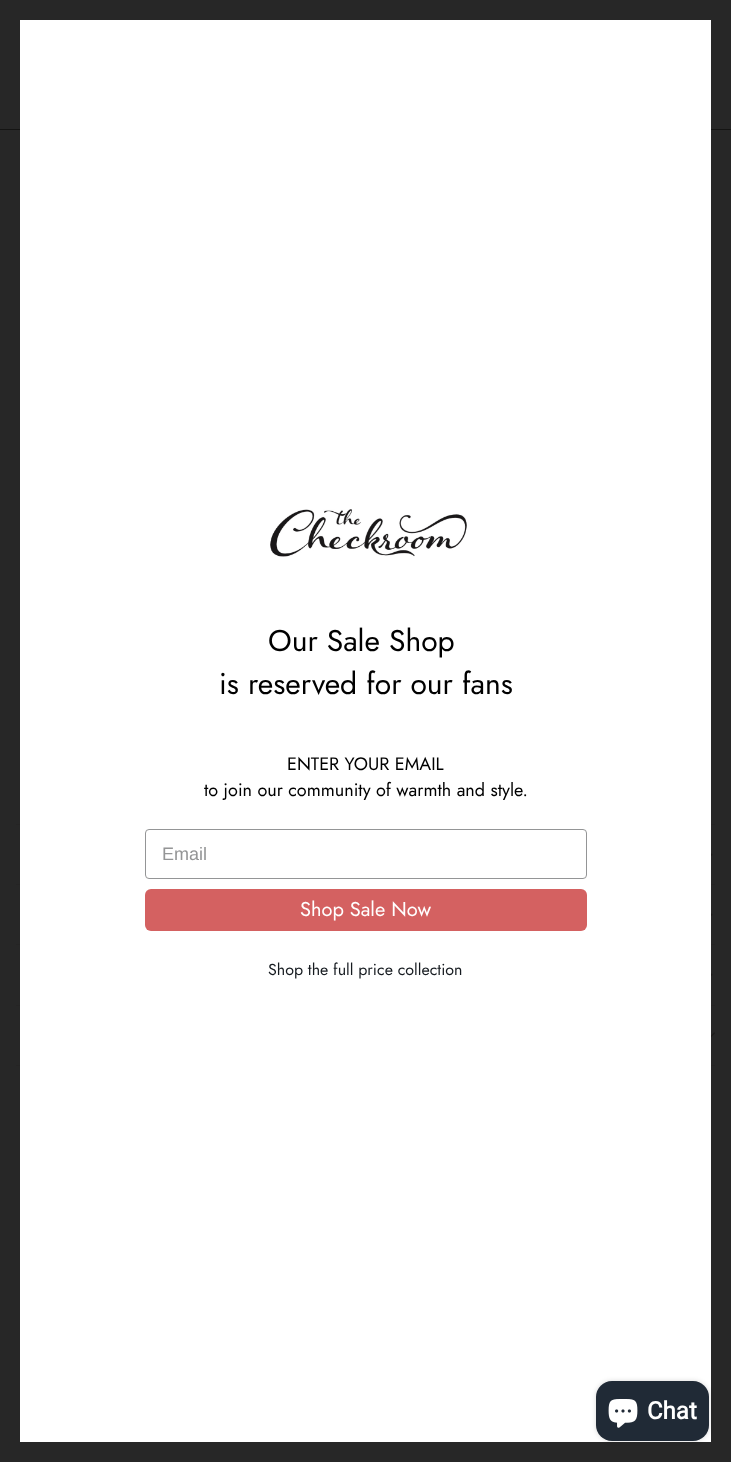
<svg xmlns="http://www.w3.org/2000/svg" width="731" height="1462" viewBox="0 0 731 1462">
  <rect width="100%" height="100%" fill="rgb(39,39,39)"/>
  <rect x="0" y="129" width="731" height="1" fill="rgb(20,20,19)"/>
  <rect x="16" y="824" width="699" height="1" fill="rgb(37,36,36)"/>
  <rect x="16" y="884" width="699" height="1" fill="rgb(37,36,36)"/>
  <rect x="16" y="944" width="699" height="1" fill="rgb(37,36,36)"/>
  <rect x="16" y="1005" width="699" height="1" fill="rgb(37,36,36)"/>
  <rect x="16" y="1065" width="699" height="1" fill="rgb(37,36,36)"/>
  <rect x="20" y="20" width="691" height="1422" fill="rgb(255,255,255)"/>
  <image x="270" y="509" width="197" height="48" href="pic1.png"/>
  <g font-family="Jost" font-size="30" fill="rgb(0,0,0)">
    <text x="268" y="651">Our Sale Shop</text>
    <text x="219" y="694">is reserved for our fans</text>
  </g>
  <g font-family="Jost" font-size="18" fill="rgb(0,0,0)">
    <text x="287" y="770">ENTER YOUR EMAIL</text>
    <text x="204" y="796">to join our community of warmth and style.</text>
  </g>
  <rect x="145.5" y="829.5" width="441" height="49" rx="3.5" fill="none" stroke="rgb(148,149,150)"/>
  <text x="162" y="860" font-family="Liberation Sans" font-size="18" fill="rgb(148,149,150)">Email</text>
  <rect x="145" y="889" width="442" height="42" rx="6" fill="rgb(212,97,97)"/>
  <text x="300" y="916" font-family="Jost" font-size="20" fill="rgb(255,255,255)">Shop Sale Now</text>
  <text x="268" y="975" font-family="Jost" font-size="16" fill="rgb(22,27,32)">Shop the full price collection</text>
  <image x="711" y="853" width="2" height="4" href="pic2.png"/>
  <image x="711" y="913" width="2" height="4" href="pic2.png"/>
  <image x="711" y="973" width="2" height="4" href="pic2.png"/>
  <image x="711" y="1032" width="4" height="6" href="pic3.png"/>
  <rect x="596" y="1381" width="113" height="60" rx="16" fill="rgba(0,0,0,0.15)" filter="blur(2.5px)"/>
  <rect x="596" y="1381" width="113" height="60" rx="16" fill="rgb(32,42,54)"/>
  <image x="608" y="1399" width="30" height="29" href="pic4.png"/>
  <text x="647" y="1419" font-family="Roboto" font-size="24" font-weight="bold" fill="rgb(255,255,255)">Chat</text>
</svg>
